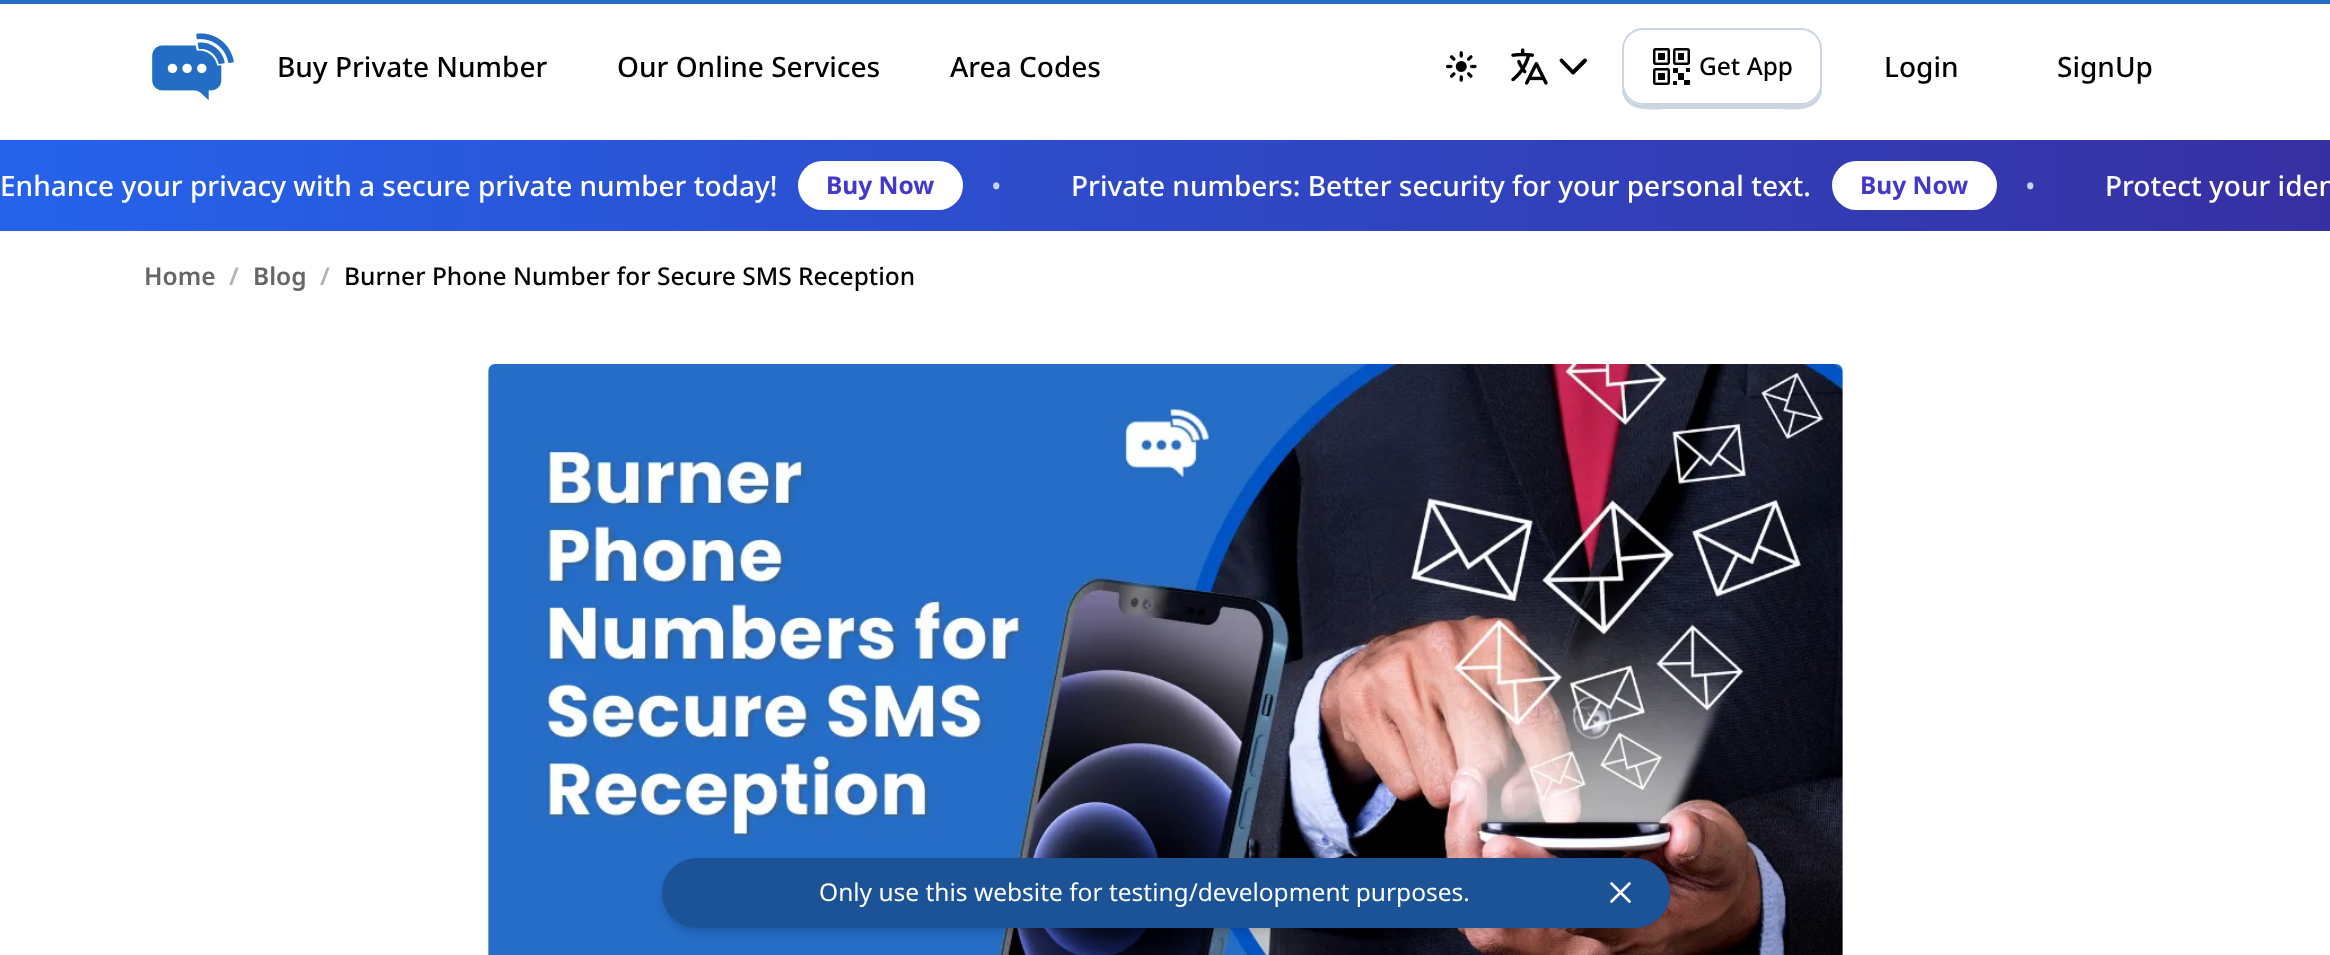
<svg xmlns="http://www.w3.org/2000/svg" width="2330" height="955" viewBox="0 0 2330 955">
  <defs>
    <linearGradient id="g1" gradientUnits="userSpaceOnUse" x1="0" y1="186" x2="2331" y2="185"><stop offset="0" stop-color="rgb(37,99,235)"/><stop offset="1" stop-color="rgb(55,48,163)"/></linearGradient>
  </defs>
  <rect width="100%" height="100%" fill="rgb(255,255,255)"/>
  <rect x="0" y="0" width="2330" height="4" fill="rgb(36,109,197)"/>
  <image x="152" y="33" width="82" height="68" href="pic1.png"/>
  <g font-family="Noto Sans" font-size="28" font-weight="500" fill="rgb(0,0,0)">
    <text x="277" y="77">Buy Private Number</text>
    <text x="617" y="77">Our Online Services</text>
    <text x="950" y="77">Area Codes</text>
  </g>
  <image x="1446" y="51" width="31" height="31" href="pic2.png"/>
  <image x="1511" y="48" width="37" height="37" href="pic3.png"/>
  <path d="M1561.5 60.5L1573 72.5L1585 60.5" fill="none" stroke="rgb(0,0,0)" stroke-width="3.9" stroke-linecap="round" stroke-linejoin="round"/>
  <image x="1653" y="48" width="37" height="37" href="pic4.png"/>
  <path d="M1622 50V76V92C1627 114 1654 109 1669 109H1775C1790 109 1817 114 1822 92V76V50V84C1822 96 1812 105 1801 105H1643C1632 105 1622 96 1622 84Z" fill="rgb(203,213,225)"/>
  <rect x="1623" y="29" width="198" height="75" rx="20" fill="none" stroke="rgb(203,213,225)" stroke-width="2"/>
  <text x="1699" y="75" font-family="Noto Sans" font-size="24.5" font-weight="500" fill="rgb(0,0,0)">Get App</text>
  <g font-family="Noto Sans" font-size="28" font-weight="500" fill="rgb(0,0,0)">
    <text x="1884" y="77">Login</text>
    <text x="2057" y="77">SignUp</text>
  </g>
  <rect x="0" y="140" width="2330" height="91" fill="url(#g1)"/>
  <text x="0" y="196" font-family="Noto Sans" font-size="28" font-weight="500" fill="rgb(255,255,255)">Enhance your privacy with a secure private number today!</text>
  <rect x="798" y="161" width="165" height="49" rx="24.5" fill="rgb(255,255,255)"/>
  <text x="826" y="194" font-family="Noto Sans" font-size="24.5" font-weight="bold" fill="rgb(67,56,202)">Buy Now</text>
  <text x="991" y="196" font-family="Noto Sans" font-size="28" fill="rgb(199,210,254)">•</text>
  <text x="1071" y="196" font-family="Noto Sans" font-size="28" font-weight="500" fill="rgb(255,255,255)">Private numbers: Better security for your personal text.</text>
  <rect x="1832" y="161" width="165" height="49" rx="24.5" fill="rgb(255,255,255)"/>
  <text x="1860" y="194" font-family="Noto Sans" font-size="24.5" font-weight="bold" fill="rgb(67,56,202)">Buy Now</text>
  <text x="2025" y="196" font-family="Noto Sans" font-size="28" fill="rgb(199,210,254)">•</text>
  <text x="2105" y="196" font-family="Noto Sans" font-size="28" font-weight="500" fill="rgb(255,255,255)">Protect your iden</text>
  <text x="144" y="285" font-family="Noto Sans" font-size="24.5" font-weight="600" fill="rgb(102,102,102)">Home</text>
  <text x="229" y="285" font-family="Noto Sans" font-size="24.5" font-weight="600" fill="rgb(179,179,179)">/</text>
  <text x="253" y="285" font-family="Noto Sans" font-size="24.5" font-weight="600" fill="rgb(102,102,102)">Blog</text>
  <text x="320" y="285" font-family="Noto Sans" font-size="24.5" font-weight="600" fill="rgb(179,179,179)">/</text>
  <text x="344" y="285" font-family="Noto Sans" font-size="24.5" font-weight="500" fill="rgb(0,0,0)">Burner Phone Number for Secure SMS Reception</text>
  <path d="M495 364H1836C1840 364 1843 367 1843 371V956H488V371C488 367 491 364 495 364Z" fill="rgb(226,232,240)"/>
  <image x="488" y="364" width="1355" height="591" href="pic5.png"/>
  <rect x="665" y="865" width="1001" height="63" rx="31.5" fill="rgba(0,0,0,0.1)" filter="blur(3.5px)"/>
  <rect x="663" y="866" width="1005" height="67" rx="33.5" fill="rgba(0,0,0,0.1)" filter="blur(5px)"/>
  <rect x="662" y="858" width="1008" height="70" rx="35" fill="rgb(27,83,150)"/>
  <text x="819" y="901" font-family="Noto Sans" font-size="24.5" fill="rgb(255,255,255)">Only use this website for testing/development purposes.</text>
  <path d="M1629.5 901.5L1611.5 883.5M1629.5 883.5L1611.5 901.5" fill="none" stroke="rgb(255,255,255)" stroke-width="2.6" stroke-linecap="round" stroke-linejoin="round"/>
</svg>
